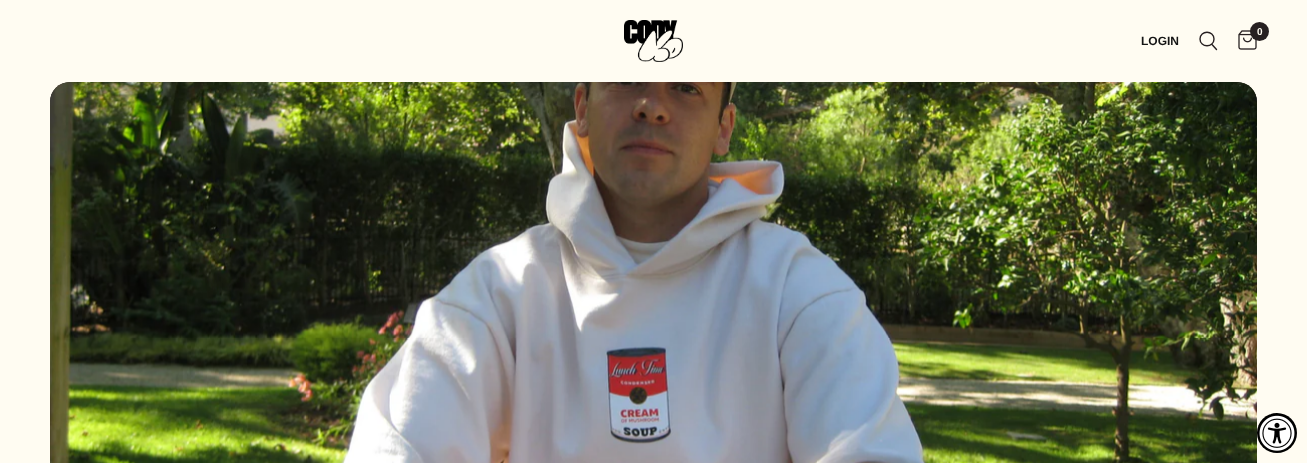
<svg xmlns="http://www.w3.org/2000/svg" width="1307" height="463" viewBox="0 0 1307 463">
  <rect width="100%" height="100%" fill="rgb(255,252,242)"/>
  <image x="624" y="20" width="59" height="42" href="pic1.png"/>
  <text x="1141" y="45" font-family="Liberation Sans" font-size="12" font-weight="bold" fill="rgb(21,21,21)">LOGIN</text>
  <path d="M1212 44.5L1216.5 49.5M1214 39C1214 48 1200 48 1200 39C1200 30 1214 30 1214 39Z" fill="none" stroke="rgb(39,32,33)" stroke-width="1.4" stroke-linecap="round" stroke-linejoin="round"/>
  <image x="1238" y="30" width="19" height="20" href="pic2.png"/>
  <circle cx="1259.5" cy="31.5" r="9.5" fill="rgb(39,32,33)"/>
  <text x="1257" y="35" font-family="Liberation Sans" font-size="10" font-weight="bold" fill="rgb(255,252,242)">0</text>
  <rect x="50" y="82" width="1207" height="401" rx="20" fill="rgb(39,32,33)"/>
  <image x="50" y="82" width="1207" height="381" href="pic3.png"/>
  <circle cx="1277" cy="433" r="20" fill="rgb(0,0,0)"/>
  <image x="1259" y="415" width="36" height="36" href="pic4.png"/>
</svg>
